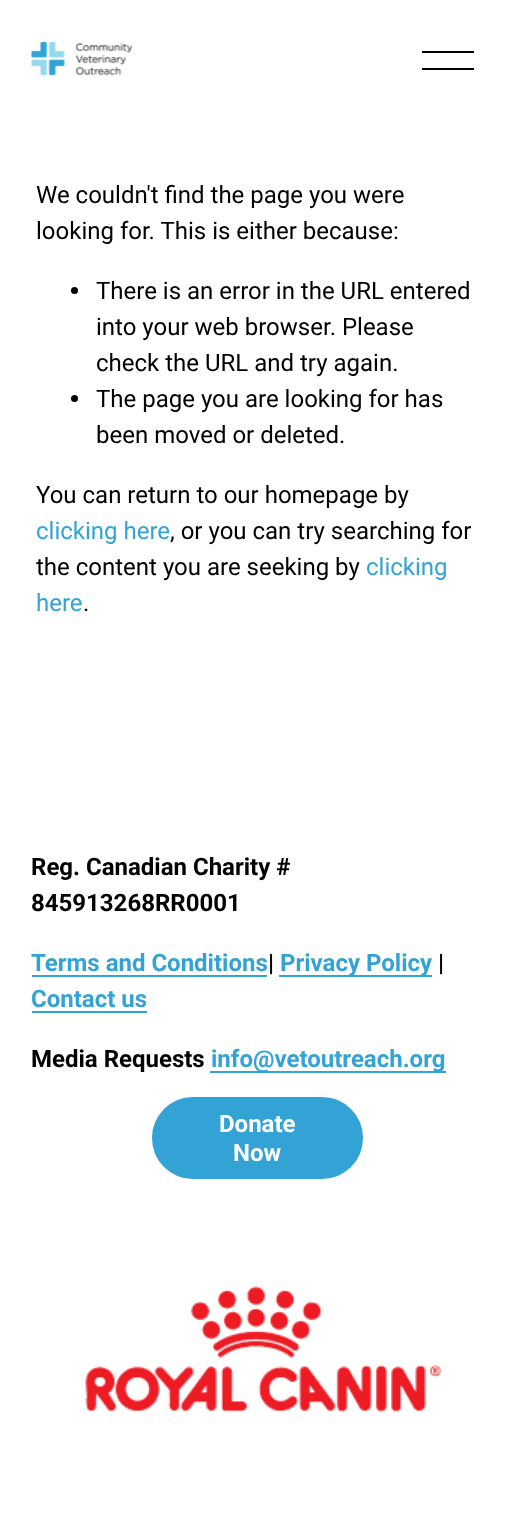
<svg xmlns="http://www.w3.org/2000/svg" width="514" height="1540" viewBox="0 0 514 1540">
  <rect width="100%" height="100%" fill="rgb(255,255,255)"/>
  <image x="31" y="42" width="101" height="34" href="pic1.png"/>
  <rect x="422" y="51" width="52" height="2" fill="rgb(0,0,0)"/>
  <rect x="422" y="68" width="52" height="2" fill="rgb(0,0,0)"/>
  <g font-family="Roboto" font-size="24" fill="rgb(0,0,0)">
    <text>
      <tspan x="36" y="203">We couldn't find the page you were</tspan>
      <tspan x="36" y="239">looking for. This is either because:</tspan>
    </text>
  </g>
  <circle cx="74.5" cy="290.5" r="3.5" fill="rgb(0,0,0)"/>
  <g font-family="Roboto" font-size="24" fill="rgb(0,0,0)">
    <text>
      <tspan x="96" y="299">There is an error in the URL entered</tspan>
      <tspan x="96" y="335">into your web browser. Please</tspan>
      <tspan x="96" y="371">check the URL and try again.</tspan>
    </text>
  </g>
  <circle cx="74.5" cy="398.5" r="3.5" fill="rgb(0,0,0)"/>
  <g font-family="Roboto" font-size="24" fill="rgb(0,0,0)">
    <text>
      <tspan x="96" y="407">The page you are looking for has</tspan>
      <tspan x="96" y="443">been moved or deleted.</tspan>
    </text>
    <text x="36" y="503">You can return to our homepage by</text>
  </g>
  <text x="36" y="539" font-family="Roboto" font-size="24" fill="rgb(51,163,213)">clicking here</text>
  <g font-family="Roboto" font-size="24" fill="rgb(0,0,0)">
    <text x="170" y="539">, or you can try searching for</text>
    <text x="36" y="575">the content you are seeking by</text>
  </g>
  <g font-family="Roboto" font-size="24" fill="rgb(51,163,213)">
    <text x="366" y="575">clicking</text>
    <text x="36" y="611">here</text>
  </g>
  <text x="83" y="611" font-family="Roboto" font-size="24" fill="rgb(0,0,0)">.</text>
  <g font-family="Roboto" font-size="24" font-weight="bold" fill="rgb(0,0,0)">
    <text>
      <tspan x="31" y="875">Reg. Canadian Charity #</tspan>
      <tspan x="31" y="911">845913268RR0001</tspan>
    </text>
  </g>
  <text x="31" y="971" font-family="Roboto" font-size="24" font-weight="bold" fill="rgb(51,163,213)">Terms and Conditions</text>
  <rect x="32" y="975" width="235" height="2" fill="rgb(51,163,213)"/>
  <text x="268" y="971" font-family="Roboto" font-size="24" font-weight="bold" fill="rgb(0,0,0)">|</text>
  <rect x="279" y="975" width="153" height="2" fill="rgb(51,163,213)"/>
  <text x="280" y="971" font-family="Roboto" font-size="24" font-weight="bold" fill="rgb(51,163,213)">Privacy Policy</text>
  <text x="438" y="971" font-family="Roboto" font-size="24" font-weight="bold" fill="rgb(0,0,0)">|</text>
  <text x="31" y="1007" font-family="Roboto" font-size="24" font-weight="bold" fill="rgb(51,163,213)">Contact us</text>
  <rect x="32" y="1011" width="115" height="2" fill="rgb(51,163,213)"/>
  <text x="31" y="1067" font-family="Roboto" font-size="24" font-weight="bold" fill="rgb(0,0,0)">Media Requests</text>
  <rect x="210" y="1071" width="236" height="2" fill="rgb(51,163,213)"/>
  <text x="211" y="1067" font-family="Roboto" font-size="24" font-weight="bold" fill="rgb(51,163,213)">info@vetoutreach.org</text>
  <rect x="150.5" y="1095.5" width="214" height="85" rx="42.5" fill="rgb(51,163,213)" stroke="rgb(255,255,255)" stroke-width="3"/>
  <g font-family="Roboto" font-size="24" font-weight="bold" fill="rgb(255,255,255)">
    <text x="219" y="1132">Donate</text>
    <text x="233" y="1161">Now</text>
  </g>
  <image x="85" y="1286" width="357" height="127" href="pic2.png"/>
</svg>
